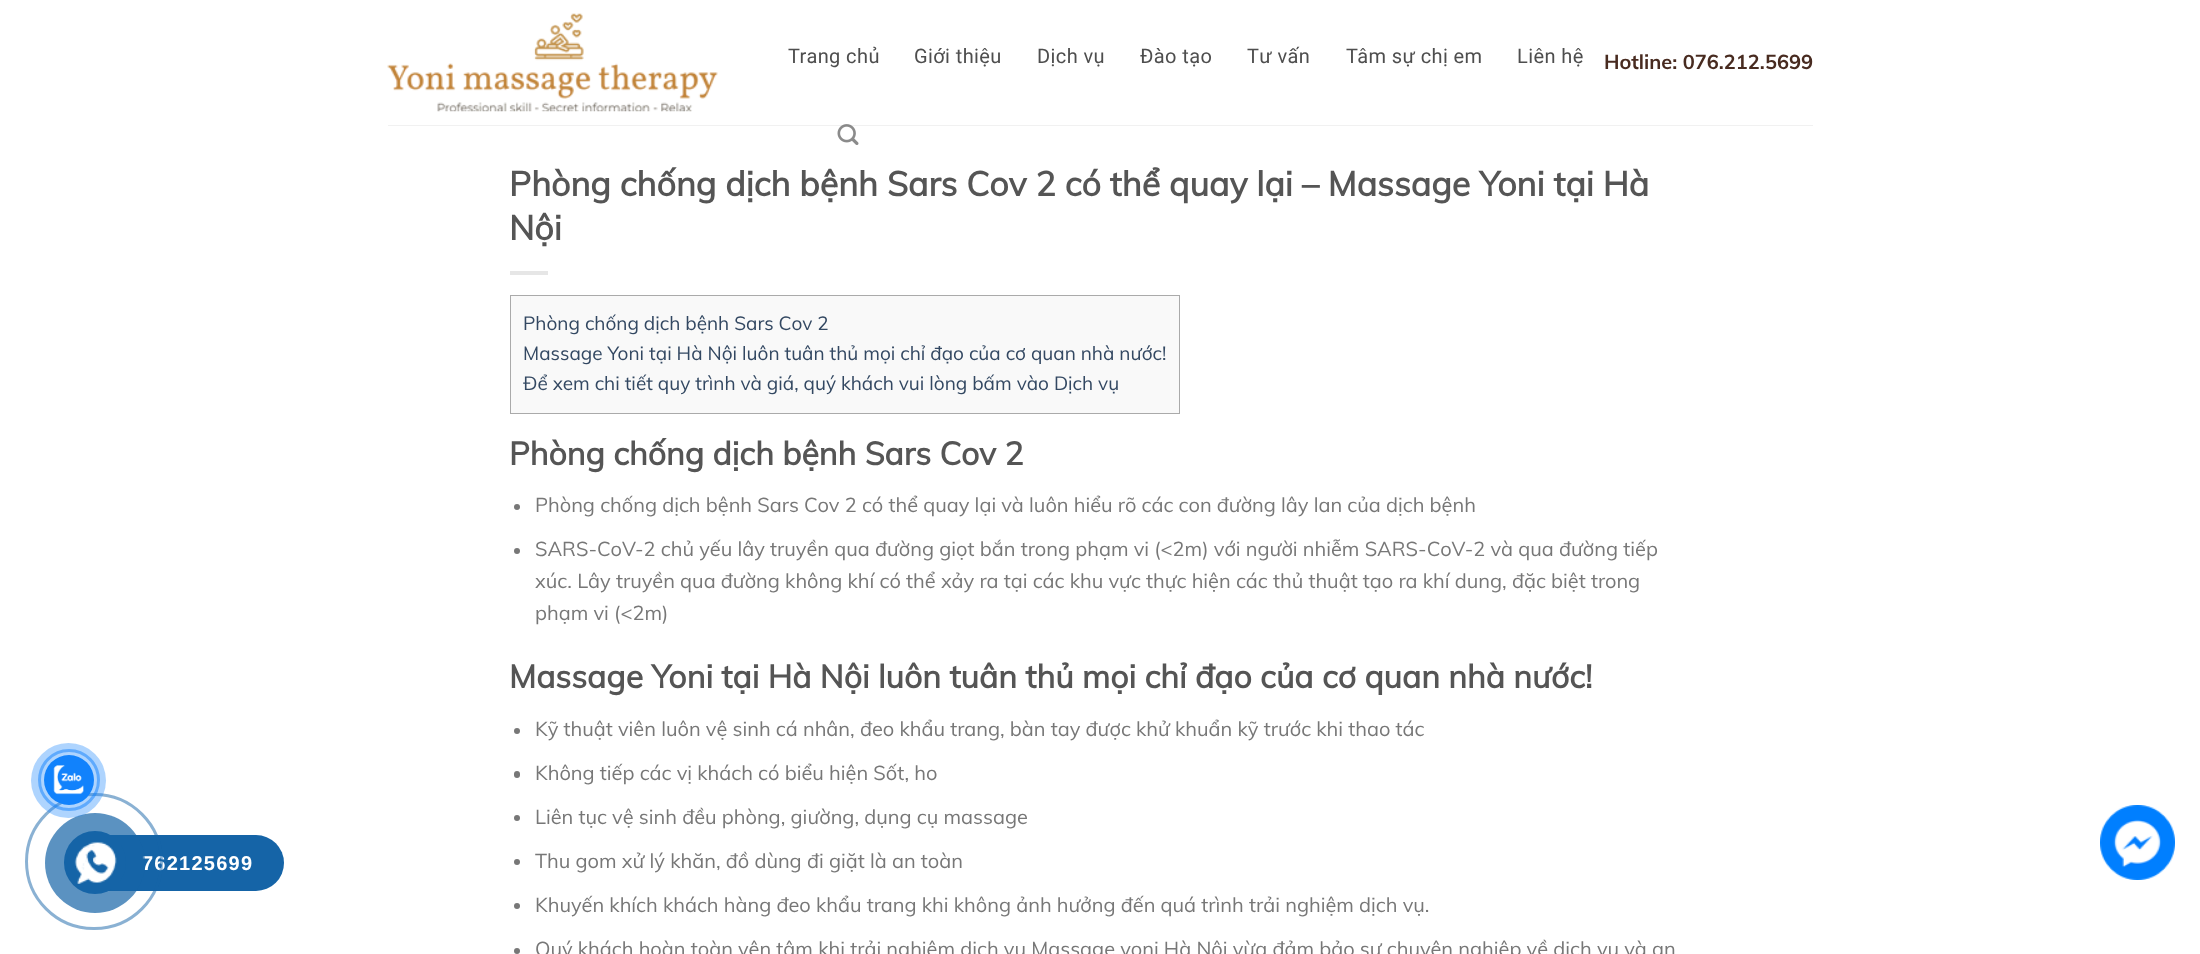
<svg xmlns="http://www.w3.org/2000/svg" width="2200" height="954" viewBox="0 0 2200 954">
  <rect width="100%" height="100%" fill="rgb(255,255,255)"/>
  <rect x="78" y="835" width="206" height="56" rx="28" fill="rgb(21,100,167)"/>
  <text x="142" y="870" font-family="Liberation Sans" font-size="20" font-weight="bold" letter-spacing="1.25" fill="rgb(255,255,255)">762125699</text>
  <rect x="26.5" y="794.5" width="135" height="134" rx="67" fill="none" stroke="rgba(21,100,167,0.5)" stroke-width="3"/>
  <circle cx="69" cy="780" r="29.5" fill="none" stroke="rgba(17,130,252,0.5)" stroke-width="3"/>
  <circle cx="95" cy="863" r="50" fill="rgba(21,100,167,0.7)"/>
  <circle cx="68.5" cy="780.5" r="37.5" fill="rgba(17,130,252,0.34)"/>
  <circle cx="69" cy="780" r="25" fill="rgb(17,130,252)"/>
  <image x="53" y="765" width="31" height="30" href="pic1.png"/>
  <image x="387" y="13" width="331" height="99" href="pic2.png"/>
  <g font-family="Roboto" font-size="20" letter-spacing="0.4" fill="rgb(78,78,78)">
    <text x="788" y="63">Trang chủ</text>
    <text x="914" y="63">Giới thiệu</text>
    <text x="1037" y="63">Dịch vụ</text>
    <text x="1140" y="63">Đào tạo</text>
    <text x="1247" y="63">Tư vấn</text>
    <text x="1346" y="63">Tâm sự chị em</text>
    <text x="1517" y="63">Liên hệ</text>
  </g>
  <image x="837" y="124" width="22" height="21" href="pic3.png"/>
  <text x="1604" y="69" font-family="'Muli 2'" font-size="20" font-weight="bold" fill="rgb(72,43,32)">Hotline: 076.212.5699</text>
  <rect x="388" y="125" width="1425" height="1" fill="rgba(119,119,119,0.1)"/>
  <g font-family="Muli" font-size="34" font-weight="bold" fill="rgb(85,85,85)">
    <text>
      <tspan x="509" y="196">Phòng chống dịch bệnh Sars Cov 2 có thể quay lại – Massage Yoni tại Hà</tspan>
      <tspan x="509" y="240">Nội</tspan>
    </text>
  </g>
  <rect x="510" y="271" width="38" height="4" fill="rgb(230,230,230)"/>
  <rect x="510.5" y="295.5" width="669" height="118" fill="rgb(249,249,249)" stroke="rgb(170,170,170)"/>
  <g font-family="Muli" font-size="19" fill="rgb(51,72,98)">
    <text>
      <tspan x="523" y="330">Phòng chống dịch bệnh Sars Cov 2</tspan>
      <tspan x="523" y="360">Massage Yoni tại Hà Nội luôn tuân thủ mọi chỉ đạo của cơ quan nhà nước!</tspan>
      <tspan x="523" y="390">Để xem chi tiết quy trình và giá, quý khách vui lòng bấm vào Dịch vụ</tspan>
    </text>
  </g>
  <text x="509" y="465" font-family="Muli" font-size="32" font-weight="bold" fill="rgb(85,85,85)">Phòng chống dịch bệnh Sars Cov 2</text>
  <circle cx="517" cy="507" r="3" fill="rgb(119,119,119)"/>
  <text x="535" y="512" font-family="Muli" font-size="20" fill="rgb(119,119,119)">Phòng chống dịch bệnh Sars Cov 2 có thể quay lại và luôn hiểu rõ các con đường lây lan của dịch bệnh</text>
  <circle cx="517" cy="551" r="3" fill="rgb(119,119,119)"/>
  <g font-family="Muli" font-size="20" fill="rgb(119,119,119)">
    <text>
      <tspan x="535" y="556">SARS-CoV-2 chủ yếu lây truyền qua đường giọt bắn trong phạm vi (&lt;2m) với người nhiễm SARS-CoV-2 và qua đường tiếp</tspan>
      <tspan x="535" y="588">xúc. Lây truyền qua đường không khí có thể xảy ra tại các khu vực thực hiện các thủ thuật tạo ra khí dung, đặc biệt trong</tspan>
      <tspan x="535" y="620">phạm vi (&lt;2m)</tspan>
    </text>
  </g>
  <text x="509" y="688" font-family="Muli" font-size="32" font-weight="bold" fill="rgb(85,85,85)">Massage Yoni tại Hà Nội luôn tuân thủ mọi chỉ đạo của cơ quan nhà nước!</text>
  <circle cx="517" cy="731" r="3" fill="rgb(119,119,119)"/>
  <text x="535" y="736" font-family="Muli" font-size="20" fill="rgb(119,119,119)">Kỹ thuật viên luôn vệ sinh cá nhân, đeo khẩu trang, bàn tay được khử khuẩn kỹ trước khi thao tác</text>
  <rect x="514" y="771" width="6" height="7" rx="3" fill="rgb(119,119,119)"/>
  <text x="535" y="780" font-family="Muli" font-size="20" fill="rgb(119,119,119)">Không tiếp các vị khách có biểu hiện Sốt, ho</text>
  <circle cx="517" cy="818" r="3" fill="rgb(119,119,119)"/>
  <text x="535" y="824" font-family="Muli" font-size="20" fill="rgb(119,119,119)">Liên tục vệ sinh đều phòng, giường, dụng cụ massage</text>
  <circle cx="517" cy="862" r="3" fill="rgb(119,119,119)"/>
  <text x="535" y="868" font-family="Muli" font-size="20" fill="rgb(119,119,119)">Thu gom xử lý khăn, đồ dùng đi giặt là an toàn</text>
  <circle cx="517" cy="906" r="3" fill="rgb(119,119,119)"/>
  <text x="535" y="912" font-family="Muli" font-size="20" fill="rgb(119,119,119)">Khuyến khích khách hàng đeo khẩu trang khi không ảnh hưởng đến quá trình trải nghiệm dịch vụ.</text>
  <circle cx="517" cy="951" r="3" fill="rgb(119,119,119)"/>
  <text x="535" y="956" font-family="Muli" font-size="20" fill="rgb(119,119,119)">Quý khách hoàn toàn yên tâm khi trải nghiệm dịch vụ Massage yoni Hà Nội vừa đảm bảo sự chuyên nghiệp về dịch vụ và an</text>
  <rect x="64" y="831" width="62" height="63" rx="31" fill="rgb(21,100,167)"/>
  <image x="74" y="841" width="43" height="43" href="pic4.png"/>
  <image x="2100" y="805" width="75" height="75" href="pic5.png"/>
</svg>
